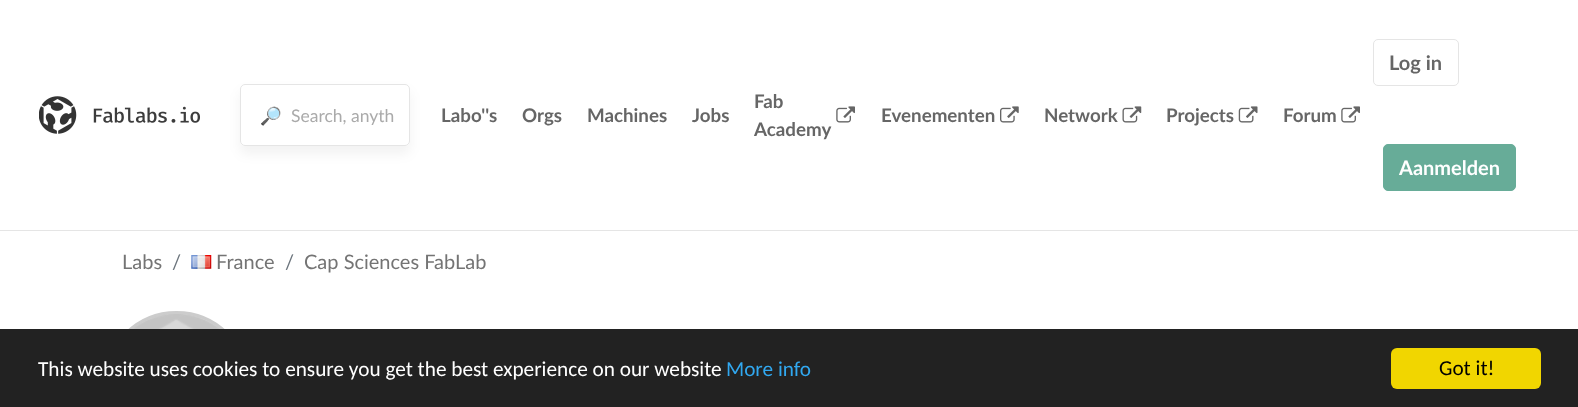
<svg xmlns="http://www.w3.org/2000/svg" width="1578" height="407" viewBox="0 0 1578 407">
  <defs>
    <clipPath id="clip1"><path d="M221 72H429V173H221ZM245 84H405C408 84 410 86 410 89V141C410 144 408 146 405 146H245C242 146 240 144 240 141V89C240 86 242 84 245 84Z" clip-rule="evenodd"/></clipPath>
  </defs>
  <rect width="100%" height="100%" fill="rgb(255,255,255)"/>
  <rect x="0" y="230" width="1578" height="1" fill="rgb(229,229,229)"/>
  <image x="39" y="96" width="161" height="38" href="pic1.png"/>
  <g clip-path="url(#clip1)">
    <rect x="240" y="91" width="170" height="63" rx="5" fill="rgba(0,0,0,0.05)" filter="blur(6px)"/>
  </g>
  <rect x="240.5" y="84.5" width="169" height="61" rx="4.5" fill="none" stroke="rgb(229,229,229)"/>
  <text x="260" y="122" font-family="Noto Color Emoji" font-size="17.5" fill="rgb(170,170,170)">🔎</text>
  <text x="291" y="122" font-family="Lato" font-size="17.5" fill="rgb(170,170,170)">Search, anyth</text>
  <g font-family="Lato" font-size="18.75" font-weight="bold" fill="rgb(102,102,102)">
    <text x="441" y="122">Labo''s</text>
    <text x="522" y="122">Orgs</text>
    <text x="587" y="122">Machines</text>
    <text x="692" y="122">Jobs</text>
    <text x="754" y="108">Fab</text>
  </g>
  <image x="836" y="106" width="19" height="17" href="pic2.png"/>
  <g font-family="Lato" font-size="18.75" font-weight="bold" fill="rgb(102,102,102)">
    <text x="754" y="136">Academy</text>
    <text x="881" y="122">Evenementen</text>
  </g>
  <image x="1000" y="106" width="19" height="17" href="pic3.png"/>
  <text x="1044" y="122" font-family="Lato" font-size="18.75" font-weight="bold" fill="rgb(102,102,102)">Network</text>
  <image x="1122" y="106" width="20" height="17" href="pic4.png"/>
  <text x="1166" y="122" font-family="Lato" font-size="18.75" font-weight="bold" fill="rgb(102,102,102)">Projects</text>
  <image x="1238" y="106" width="20" height="17" href="pic5.png"/>
  <text x="1283" y="122" font-family="Lato" font-size="18.75" font-weight="bold" fill="rgb(102,102,102)">Forum</text>
  <image x="1341" y="106" width="19" height="17" href="pic2.png"/>
  <rect x="1373.5" y="39.5" width="85" height="46" rx="4.5" fill="none" stroke="rgb(229,229,229)"/>
  <text x="1389" y="70" font-family="Lato" font-size="20" font-weight="bold" fill="rgb(102,102,102)">Log in</text>
  <rect x="1383.5" y="144.5" width="132" height="46" rx="4.5" fill="rgb(103,172,152)" stroke="rgb(103,172,152)"/>
  <text x="1399" y="175" font-family="Lato" font-size="20" font-weight="bold" fill="rgb(255,255,255)">Aanmelden</text>
  <text x="122" y="269" font-family="Lato" font-size="20" fill="rgb(116,116,116)">Labs</text>
  <text x="172" y="269" font-family="Lato" font-size="20" fill="rgb(108,117,125)">/</text>
  <image x="191" y="255" width="21" height="14" href="pic6.png"/>
  <text x="216" y="269" font-family="Lato" font-size="20" fill="rgb(116,116,116)">France</text>
  <text x="285" y="269" font-family="Lato" font-size="20" fill="rgb(108,117,125)">/</text>
  <text x="304" y="269" font-family="Lato" font-size="20" fill="rgb(116,116,116)">Cap Sciences FabLab</text>
  <rect x="104.5" y="312.5" width="144" height="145" rx="72" fill="rgb(216,216,216)" stroke="rgb(204,204,204)" stroke-width="3"/>
  <image x="132" y="314" width="88" height="15" href="pic7.png"/>
  <rect x="0" y="329" width="1578" height="78" fill="rgb(34,34,34)"/>
  <text x="38" y="376" font-family="Carlito" font-size="21.25" fill="rgb(255,255,255)">This website uses cookies to ensure you get the best experience on our website</text>
  <text x="726" y="376" font-family="Carlito" font-size="21.25" fill="rgb(49,168,240)">More info</text>
  <rect x="1391" y="348" width="150" height="41" rx="6" fill="rgb(241,214,0)"/>
  <text x="1439" y="375" font-family="Carlito" font-size="21.25" fill="rgb(0,0,0)">Got it!</text>
</svg>
